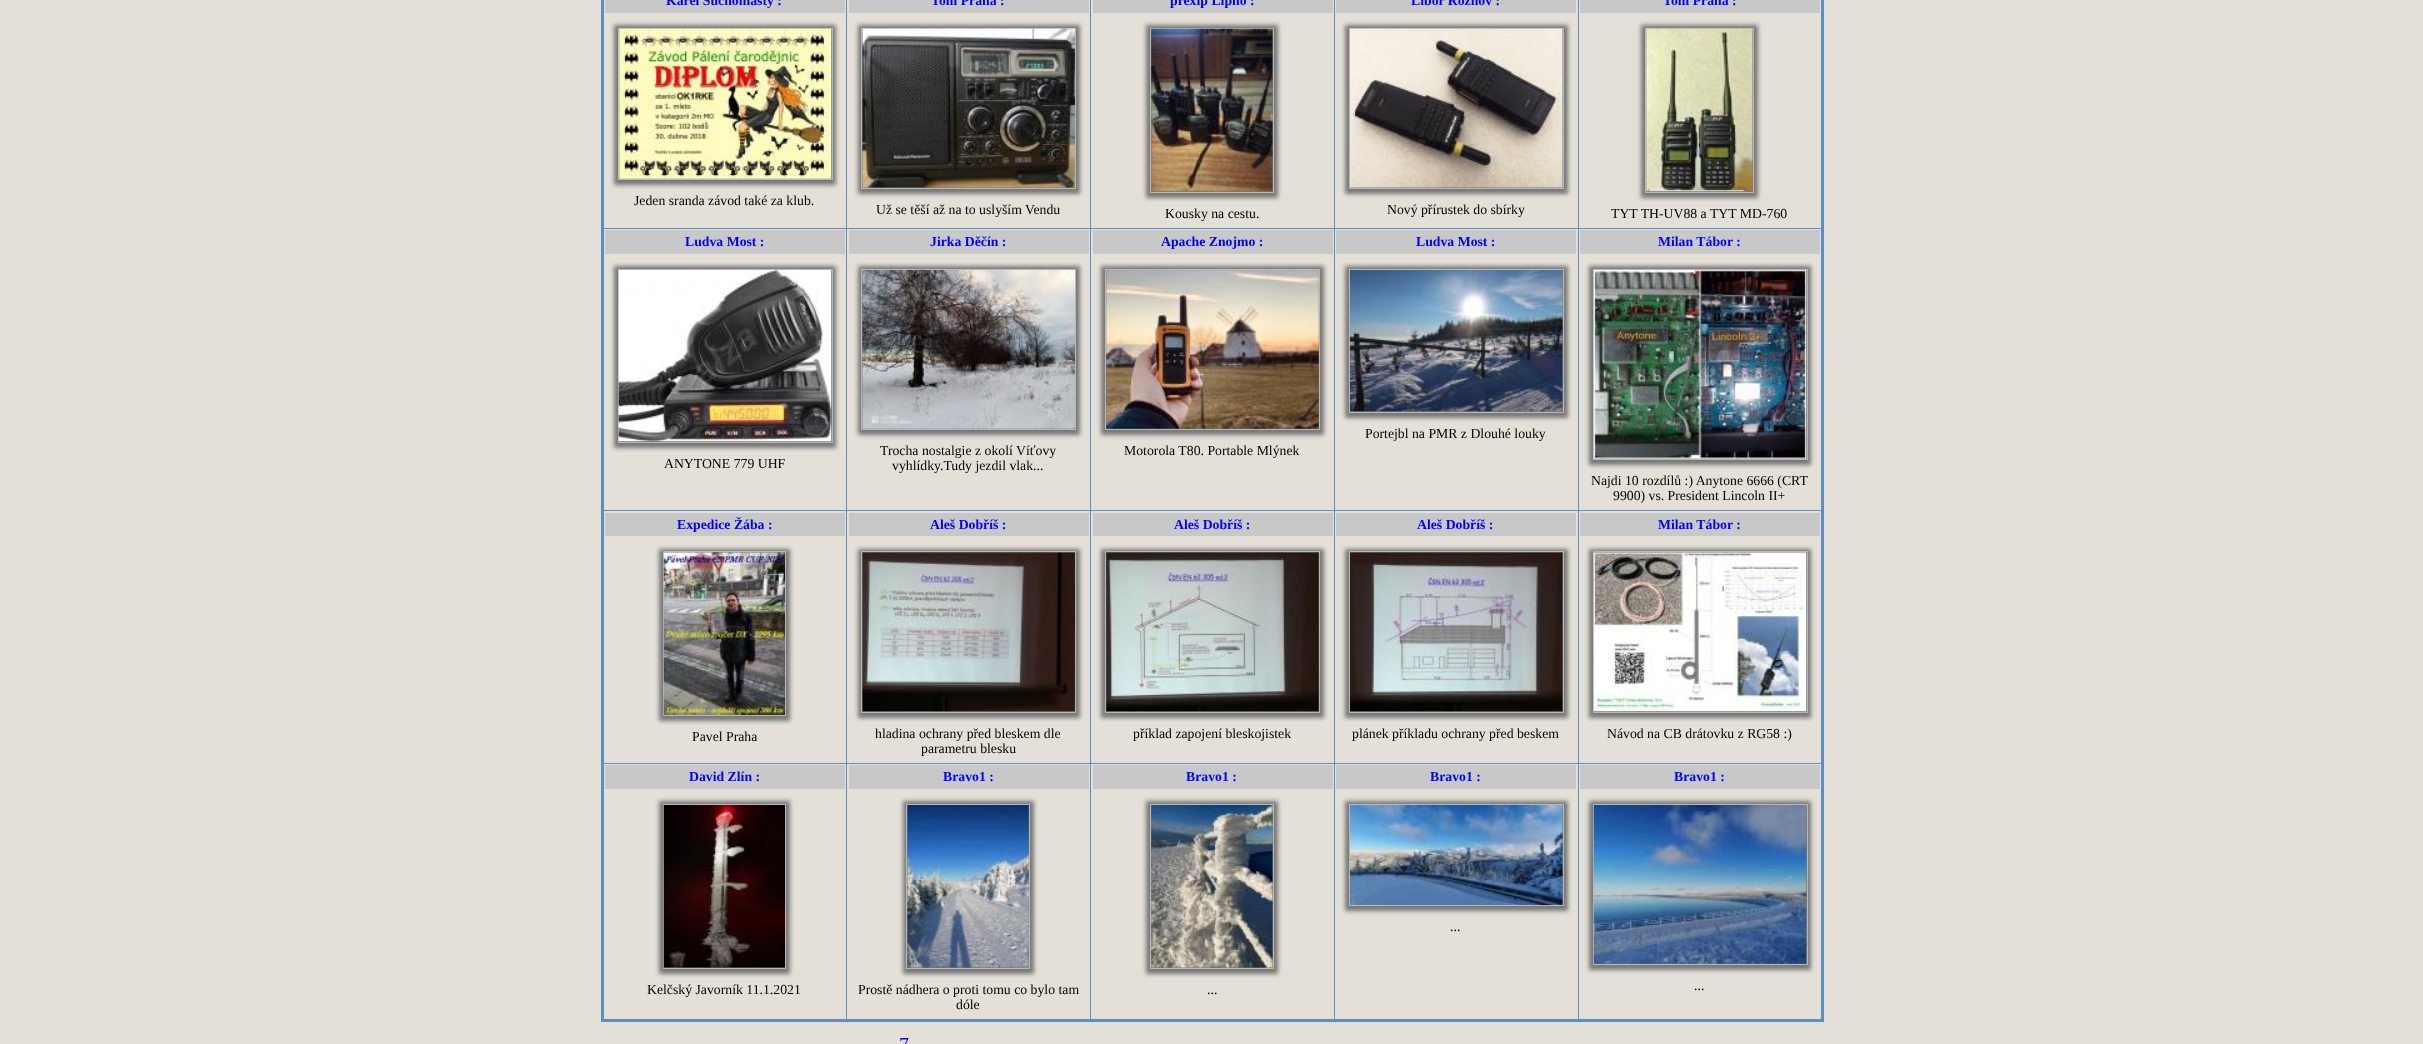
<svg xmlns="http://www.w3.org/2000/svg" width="2423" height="1044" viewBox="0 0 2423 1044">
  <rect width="100%" height="100%" fill="rgb(228,224,216)"/>
  <rect x="1578" y="228" width="245" height="1" fill="rgb(91,143,193)"/>
  <rect x="1578" y="510" width="245" height="1" fill="rgb(91,143,193)"/>
  <rect x="1578" y="763" width="245" height="1" fill="rgb(91,143,193)"/>
  <rect x="1821" y="0" width="3" height="1021" fill="rgb(91,143,193)"/>
  <rect x="1578" y="763" width="1" height="258" fill="rgb(91,143,193)"/>
  <rect x="1334" y="763" width="245" height="1" fill="rgb(91,143,193)"/>
  <rect x="1334" y="763" width="1" height="258" fill="rgb(91,143,193)"/>
  <rect x="1090" y="763" width="245" height="1" fill="rgb(91,143,193)"/>
  <rect x="1090" y="763" width="1" height="258" fill="rgb(91,143,193)"/>
  <rect x="846" y="763" width="245" height="1" fill="rgb(91,143,193)"/>
  <rect x="846" y="763" width="1" height="258" fill="rgb(91,143,193)"/>
  <rect x="601" y="1019" width="1223" height="3" fill="rgb(91,143,193)"/>
  <rect x="1578" y="510" width="1" height="254" fill="rgb(91,143,193)"/>
  <rect x="1334" y="510" width="245" height="1" fill="rgb(91,143,193)"/>
  <rect x="1578" y="228" width="1" height="283" fill="rgb(91,143,193)"/>
  <rect x="1334" y="228" width="245" height="1" fill="rgb(91,143,193)"/>
  <rect x="1334" y="510" width="1" height="254" fill="rgb(91,143,193)"/>
  <rect x="1090" y="510" width="245" height="1" fill="rgb(91,143,193)"/>
  <rect x="1334" y="228" width="1" height="283" fill="rgb(91,143,193)"/>
  <rect x="1090" y="228" width="245" height="1" fill="rgb(91,143,193)"/>
  <rect x="1090" y="510" width="1" height="254" fill="rgb(91,143,193)"/>
  <rect x="846" y="510" width="245" height="1" fill="rgb(91,143,193)"/>
  <rect x="1090" y="228" width="1" height="283" fill="rgb(91,143,193)"/>
  <rect x="846" y="228" width="245" height="1" fill="rgb(91,143,193)"/>
  <rect x="601" y="763" width="247" height="1" fill="rgb(91,143,193)"/>
  <rect x="846" y="510" width="1" height="254" fill="rgb(91,143,193)"/>
  <rect x="601" y="510" width="247" height="1" fill="rgb(91,143,193)"/>
  <rect x="846" y="228" width="1" height="283" fill="rgb(91,143,193)"/>
  <rect x="601" y="228" width="247" height="1" fill="rgb(91,143,193)"/>
  <rect x="601" y="0" width="3" height="1021" fill="rgb(91,143,193)"/>
  <rect x="605" y="0" width="240" height="13" fill="rgb(200,200,200)"/>
  <text x="666" y="5" font-family="Liberation Serif" font-size="13.75" font-weight="bold" fill="rgb(0,0,255)">Karel Suchomasty :</text>
  <rect x="614" y="25" width="222" height="160" fill="rgb(119,119,119)" filter="blur(2px)"/>
  <rect x="618.5" y="28.5" width="214" height="151" fill="none" stroke="rgb(183,183,183)"/>
  <image x="618" y="28" width="214" height="151" href="pic1.png"/>
  <text x="634" y="205" font-family="Liberation Serif" font-size="13.75" fill="rgb(0,0,0)">Jeden sranda závod také za klub.</text>
  <rect x="846" y="0" width="1" height="229" fill="rgb(91,143,193)"/>
  <rect x="849" y="0" width="240" height="13" fill="rgb(200,200,200)"/>
  <text x="931" y="5" font-family="Liberation Serif" font-size="13.75" font-weight="bold" fill="rgb(0,0,255)">Tom Praha :</text>
  <rect x="858" y="25" width="222" height="169" fill="rgb(119,119,119)" filter="blur(2px)"/>
  <rect x="861.5" y="28.5" width="214" height="160" fill="none" stroke="rgb(183,183,183)"/>
  <image x="862" y="28" width="213" height="160" href="pic2.png"/>
  <text x="876" y="214" font-family="Liberation Serif" font-size="13.75" fill="rgb(0,0,0)">Už se těší až na to uslyším Vendu</text>
  <rect x="1090" y="0" width="1" height="229" fill="rgb(91,143,193)"/>
  <rect x="1093" y="0" width="240" height="13" fill="rgb(200,200,200)"/>
  <text x="1170" y="5" font-family="Liberation Serif" font-size="13.75" font-weight="bold" fill="rgb(0,0,255)">prexip Lipno :</text>
  <rect x="1146" y="25" width="132" height="173" fill="rgb(119,119,119)" filter="blur(2px)"/>
  <rect x="1150.5" y="28.5" width="123" height="164" fill="none" stroke="rgb(183,183,183)"/>
  <image x="1151" y="28" width="122" height="164" href="pic3.png"/>
  <text x="1165" y="218" font-family="Liberation Serif" font-size="13.75" fill="rgb(0,0,0)">Kousky na cestu.</text>
  <rect x="1334" y="0" width="1" height="229" fill="rgb(91,143,193)"/>
  <rect x="1336" y="0" width="240" height="13" fill="rgb(200,200,200)"/>
  <text x="1411" y="5" font-family="Liberation Serif" font-size="13.75" font-weight="bold" fill="rgb(0,0,255)">Libor Rožnov :</text>
  <rect x="1345" y="25" width="223" height="169" fill="rgb(119,119,119)" filter="blur(2px)"/>
  <rect x="1349.5" y="28.5" width="214" height="160" fill="none" stroke="rgb(183,183,183)"/>
  <image x="1350" y="28" width="213" height="160" href="pic4.png"/>
  <text x="1387" y="214" font-family="Liberation Serif" font-size="13.75" fill="rgb(0,0,0)">Nový přírustek do sbírky</text>
  <rect x="1578" y="0" width="1" height="229" fill="rgb(91,143,193)"/>
  <rect x="1580" y="0" width="240" height="13" fill="rgb(200,200,200)"/>
  <text x="1663" y="5" font-family="Liberation Serif" font-size="13.75" font-weight="bold" fill="rgb(0,0,255)">Tom Praha :</text>
  <rect x="1641" y="25" width="117" height="173" fill="rgb(119,119,119)" filter="blur(2px)"/>
  <rect x="1645.5" y="28.5" width="108" height="164" fill="none" stroke="rgb(183,183,183)"/>
  <image x="1646" y="28" width="107" height="164" href="pic5.png"/>
  <text x="1611" y="218" font-family="Liberation Serif" font-size="13.75" fill="rgb(0,0,0)">TYT TH-UV88 a TYT MD-760</text>
  <rect x="605" y="230" width="240" height="24" fill="rgb(200,200,200)"/>
  <text x="685" y="246" font-family="Liberation Serif" font-size="13.75" font-weight="bold" fill="rgb(0,0,255)">Ludva Most :</text>
  <rect x="614" y="266" width="222" height="182" fill="rgb(119,119,119)" filter="blur(2px)"/>
  <rect x="618.5" y="269.5" width="214" height="173" fill="none" stroke="rgb(183,183,183)"/>
  <image x="618" y="270" width="214" height="172" href="pic6.png"/>
  <text x="664" y="468" font-family="Liberation Serif" font-size="13.75" fill="rgb(0,0,0)">ANYTONE 779 UHF</text>
  <rect x="849" y="230" width="240" height="24" fill="rgb(200,200,200)"/>
  <text x="930" y="246" font-family="Liberation Serif" font-size="13.75" font-weight="bold" fill="rgb(0,0,255)">Jirka Děčín :</text>
  <rect x="858" y="266" width="222" height="169" fill="rgb(119,119,119)" filter="blur(2px)"/>
  <rect x="861.5" y="269.5" width="214" height="160" fill="none" stroke="rgb(183,183,183)"/>
  <image x="862" y="270" width="213" height="159" href="pic7.png"/>
  <g font-family="Liberation Serif" font-size="13.75" fill="rgb(0,0,0)">
    <text x="880" y="455">Trocha nostalgie z okolí Víťovy</text>
    <text x="892" y="470">vyhlídky.Tudy jezdil vlak...</text>
  </g>
  <rect x="1093" y="230" width="240" height="24" fill="rgb(200,200,200)"/>
  <text x="1161" y="246" font-family="Liberation Serif" font-size="13.75" font-weight="bold" fill="rgb(0,0,255)">Apache Znojmo :</text>
  <rect x="1101" y="266" width="223" height="169" fill="rgb(119,119,119)" filter="blur(2px)"/>
  <rect x="1105.5" y="269.5" width="214" height="160" fill="none" stroke="rgb(183,183,183)"/>
  <image x="1106" y="270" width="213" height="159" href="pic8.png"/>
  <text x="1124" y="455" font-family="Liberation Serif" font-size="13.75" fill="rgb(0,0,0)">Motorola T80. Portable Mlýnek</text>
  <rect x="1336" y="230" width="240" height="24" fill="rgb(200,200,200)"/>
  <text x="1416" y="246" font-family="Liberation Serif" font-size="13.75" font-weight="bold" fill="rgb(0,0,255)">Ludva Most :</text>
  <rect x="1345" y="266" width="223" height="152" fill="rgb(119,119,119)" filter="blur(2px)"/>
  <rect x="1349.5" y="269.5" width="214" height="143" fill="none" stroke="rgb(183,183,183)"/>
  <image x="1350" y="270" width="213" height="142" href="pic9.png"/>
  <text x="1365" y="438" font-family="Liberation Serif" font-size="13.75" fill="rgb(0,0,0)">Portejbl na PMR z Dlouhé louky</text>
  <rect x="1580" y="230" width="240" height="24" fill="rgb(200,200,200)"/>
  <text x="1658" y="246" font-family="Liberation Serif" font-size="13.75" font-weight="bold" fill="rgb(0,0,255)">Milan Tábor :</text>
  <rect x="1589" y="266" width="222" height="199" fill="rgb(119,119,119)" filter="blur(2px)"/>
  <rect x="1593.5" y="269.5" width="214" height="190" fill="none" stroke="rgb(183,183,183)"/>
  <image x="1593" y="270" width="214" height="189" href="pic10.png"/>
  <g font-family="Liberation Serif" font-size="13.75" fill="rgb(0,0,0)">
    <text x="1591" y="485">Najdi 10 rozdílů :) Anytone 6666 (CRT</text>
    <text x="1613" y="500">9900) vs. President Lincoln II+</text>
  </g>
  <rect x="605" y="513" width="240" height="23" fill="rgb(200,200,200)"/>
  <text x="677" y="529" font-family="Liberation Serif" font-size="13.75" font-weight="bold" fill="rgb(0,0,255)">Expedice Žába :</text>
  <rect x="659" y="549" width="131" height="172" fill="rgb(119,119,119)" filter="blur(2px)"/>
  <rect x="663.5" y="551.5" width="122" height="164" fill="none" stroke="rgb(183,183,183)"/>
  <image x="663" y="552" width="122" height="163" href="pic11.png"/>
  <text x="692" y="741" font-family="Liberation Serif" font-size="13.75" fill="rgb(0,0,0)">Pavel Praha</text>
  <rect x="849" y="513" width="240" height="23" fill="rgb(200,200,200)"/>
  <text x="930" y="529" font-family="Liberation Serif" font-size="13.75" font-weight="bold" fill="rgb(0,0,255)">Aleš Dobříš :</text>
  <rect x="858" y="549" width="222" height="169" fill="rgb(119,119,119)" filter="blur(2px)"/>
  <rect x="861.5" y="551.5" width="214" height="161" fill="none" stroke="rgb(183,183,183)"/>
  <image x="862" y="552" width="213" height="160" href="pic12.png"/>
  <g font-family="Liberation Serif" font-size="13.75" fill="rgb(0,0,0)">
    <text x="875" y="738">hladina ochrany před bleskem dle</text>
    <text x="921" y="753">parametru blesku</text>
  </g>
  <rect x="1093" y="513" width="240" height="23" fill="rgb(200,200,200)"/>
  <text x="1174" y="529" font-family="Liberation Serif" font-size="13.75" font-weight="bold" fill="rgb(0,0,255)">Aleš Dobříš :</text>
  <rect x="1101" y="549" width="223" height="169" fill="rgb(119,119,119)" filter="blur(2px)"/>
  <rect x="1105.5" y="551.5" width="214" height="161" fill="none" stroke="rgb(183,183,183)"/>
  <image x="1106" y="552" width="213" height="160" href="pic13.png"/>
  <text x="1133" y="738" font-family="Liberation Serif" font-size="13.75" fill="rgb(0,0,0)">příklad zapojení bleskojistek</text>
  <rect x="1336" y="513" width="240" height="23" fill="rgb(200,200,200)"/>
  <text x="1417" y="529" font-family="Liberation Serif" font-size="13.75" font-weight="bold" fill="rgb(0,0,255)">Aleš Dobříš :</text>
  <rect x="1345" y="549" width="223" height="169" fill="rgb(119,119,119)" filter="blur(2px)"/>
  <rect x="1349.5" y="551.5" width="214" height="161" fill="none" stroke="rgb(183,183,183)"/>
  <image x="1350" y="552" width="213" height="160" href="pic14.png"/>
  <text x="1352" y="738" font-family="Liberation Serif" font-size="13.75" fill="rgb(0,0,0)">plánek příkladu ochrany před beskem</text>
  <rect x="1580" y="513" width="240" height="23" fill="rgb(200,200,200)"/>
  <text x="1658" y="529" font-family="Liberation Serif" font-size="13.75" font-weight="bold" fill="rgb(0,0,255)">Milan Tábor :</text>
  <rect x="1589" y="549" width="222" height="169" fill="rgb(119,119,119)" filter="blur(2px)"/>
  <rect x="1593.5" y="551.5" width="214" height="161" fill="none" stroke="rgb(183,183,183)"/>
  <image x="1593" y="552" width="214" height="160" href="pic15.png"/>
  <text x="1607" y="738" font-family="Liberation Serif" font-size="13.75" fill="rgb(0,0,0)">Návod na CB drátovku z RG58 :)</text>
  <rect x="605" y="765" width="240" height="24" fill="rgb(200,200,200)"/>
  <text x="689" y="781" font-family="Liberation Serif" font-size="13.75" font-weight="bold" fill="rgb(0,0,255)">David Zlín :</text>
  <rect x="659" y="801" width="131" height="173" fill="rgb(119,119,119)" filter="blur(2px)"/>
  <rect x="663.5" y="804.5" width="122" height="164" fill="none" stroke="rgb(183,183,183)"/>
  <image x="663" y="805" width="122" height="163" href="pic16.png"/>
  <text x="647" y="994" font-family="Liberation Serif" font-size="13.75" fill="rgb(0,0,0)">Kelčský Javorník 11.1.2021</text>
  <rect x="849" y="765" width="240" height="24" fill="rgb(200,200,200)"/>
  <text x="943" y="781" font-family="Liberation Serif" font-size="13.75" font-weight="bold" fill="rgb(0,0,255)">Bravo1 :</text>
  <rect x="903" y="801" width="131" height="173" fill="rgb(119,119,119)" filter="blur(2px)"/>
  <rect x="906.5" y="804.5" width="123" height="164" fill="none" stroke="rgb(183,183,183)"/>
  <image x="907" y="805" width="122" height="163" href="pic17.png"/>
  <g font-family="Liberation Serif" font-size="13.75" fill="rgb(0,0,0)">
    <text x="858" y="994">Prostě nádhera o proti tomu co bylo tam</text>
    <text x="956" y="1009">dóle</text>
  </g>
  <rect x="1093" y="765" width="240" height="24" fill="rgb(200,200,200)"/>
  <text x="1186" y="781" font-family="Liberation Serif" font-size="13.75" font-weight="bold" fill="rgb(0,0,255)">Bravo1 :</text>
  <rect x="1146" y="801" width="132" height="173" fill="rgb(119,119,119)" filter="blur(2px)"/>
  <rect x="1150.5" y="804.5" width="123" height="164" fill="none" stroke="rgb(183,183,183)"/>
  <image x="1151" y="805" width="122" height="163" href="pic18.png"/>
  <text x="1207" y="994" font-family="Liberation Serif" font-size="13.75" fill="rgb(0,0,0)">...</text>
  <rect x="1336" y="765" width="240" height="24" fill="rgb(200,200,200)"/>
  <text x="1430" y="781" font-family="Liberation Serif" font-size="13.75" font-weight="bold" fill="rgb(0,0,255)">Bravo1 :</text>
  <rect x="1345" y="801" width="223" height="110" fill="rgb(119,119,119)" filter="blur(2px)"/>
  <rect x="1349.5" y="804.5" width="214" height="101" fill="none" stroke="rgb(183,183,183)"/>
  <image x="1350" y="805" width="213" height="100" href="pic19.png"/>
  <text x="1450" y="931" font-family="Liberation Serif" font-size="13.75" fill="rgb(0,0,0)">...</text>
  <rect x="1580" y="765" width="240" height="24" fill="rgb(200,200,200)"/>
  <text x="1674" y="781" font-family="Liberation Serif" font-size="13.75" font-weight="bold" fill="rgb(0,0,255)">Bravo1 :</text>
  <rect x="1589" y="801" width="222" height="169" fill="rgb(119,119,119)" filter="blur(2px)"/>
  <rect x="1593.5" y="804.5" width="214" height="160" fill="none" stroke="rgb(183,183,183)"/>
  <image x="1593" y="805" width="214" height="159" href="pic20.png"/>
  <text x="1694" y="990" font-family="Liberation Serif" font-size="13.75" fill="rgb(0,0,0)">...</text>
  <text x="899" y="1051" font-family="Liberation Serif" font-size="20" fill="rgb(0,0,255)">7</text>
</svg>
